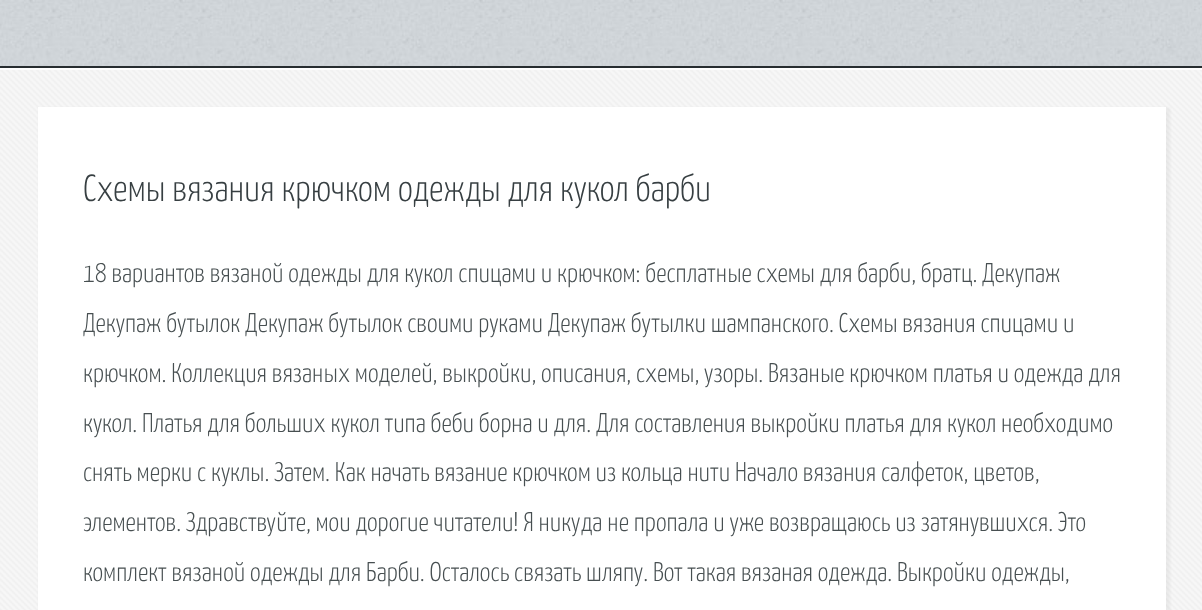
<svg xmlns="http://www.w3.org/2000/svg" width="1202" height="610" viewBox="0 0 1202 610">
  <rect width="100%" height="100%" fill="rgb(255,255,255)"/>
  <image x="0" y="0" width="1202" height="66" href="pic1.png"/>
  <rect x="0" y="66" width="1202" height="2" fill="rgb(39,45,48)"/>
  <rect x="0" y="70" width="1202" height="540" fill="rgb(247,247,247)"/>
  <image x="0" y="70" width="1202" height="540" href="pic2.png"/>
  <rect x="39" y="108" width="1131" height="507" fill="rgba(128,128,128,0.1)" filter="blur(1.5px)"/>
  <rect x="38" y="107" width="1128" height="503" fill="rgb(255,255,255)"/>
  <text x="83" y="201" font-family="Yanone Kaffeesatz" font-size="37.75" font-weight="300" fill="rgb(55,63,66)">Схемы вязания крючком одежды для кукол барби</text>
  <g font-family="Yanone Kaffeesatz" font-size="27" font-weight="300" fill="rgb(71,79,81)">
    <text>
      <tspan x="83" y="282">18 вариантов вязаной одежды для кукол спицами и крючком: бесплатные схемы для барби, братц. Декупаж</tspan>
      <tspan x="83" y="332">Декупаж бутылок Декупаж бутылок своими руками Декупаж бутылки шампанского. Схемы вязания спицами и</tspan>
      <tspan x="83" y="382">крючком. Коллекция вязаных моделей, выкройки, описания, схемы, узоры. Вязаные крючком платья и одежда для</tspan>
      <tspan x="83" y="432">кукол. Платья для больших кукол типа беби борна и для. Для составления выкройки платья для кукол необходимо</tspan>
      <tspan x="83" y="481">снять мерки с куклы. Затем. Как начать вязание крючком из кольца нити Начало вязания салфеток, цветов,</tspan>
      <tspan x="83" y="531">элементов. Здравствуйте, мои дорогие читатели! Я никуда не пропала и уже возвращаюсь из затянувшихся. Это</tspan>
      <tspan x="83" y="581">комплект вязаной одежды для Барби. Осталось связать шляпу. Вот такая вязаная одежда. Выкройки одежды,</tspan>
    </text>
  </g>
</svg>
